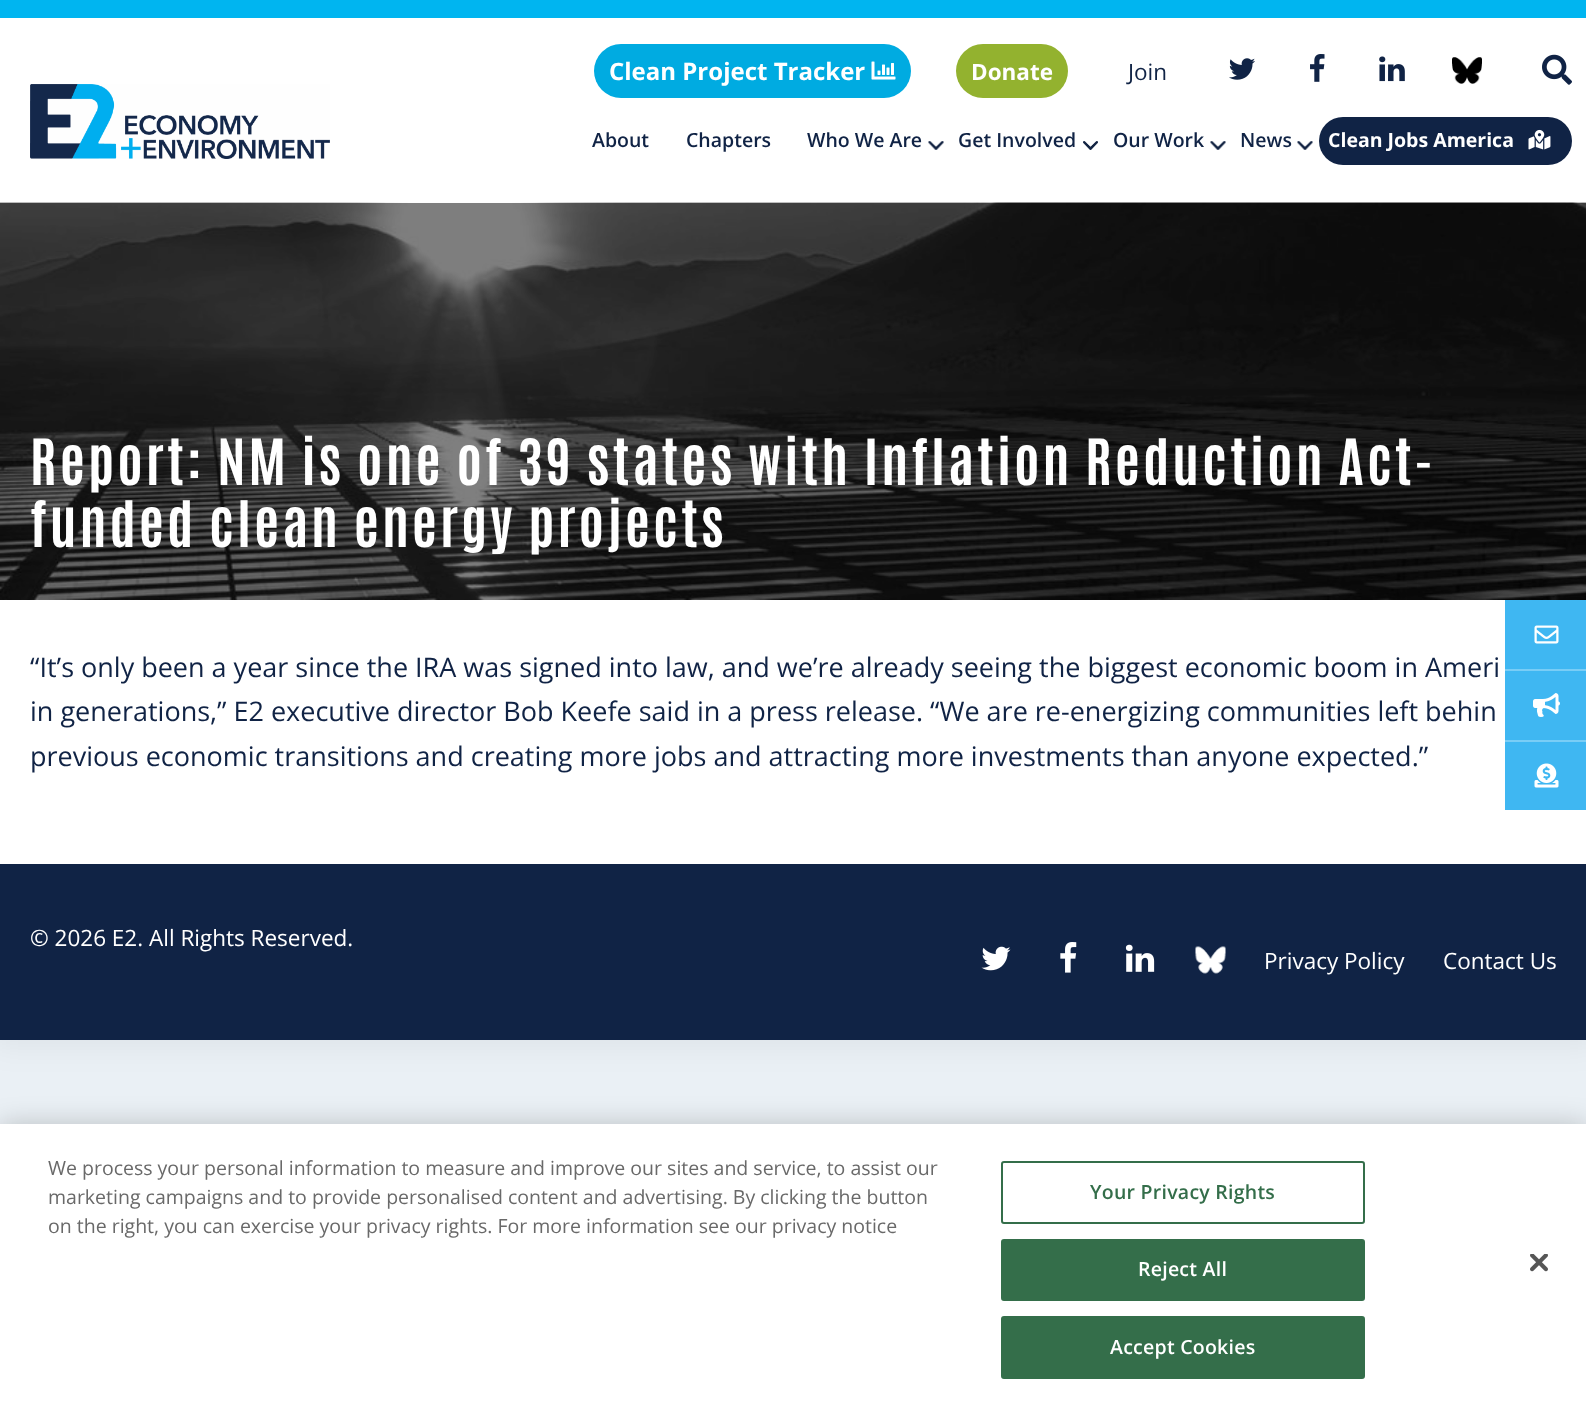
<svg xmlns="http://www.w3.org/2000/svg" width="1586" height="1408" viewBox="0 0 1586 1408">
  <rect width="100%" height="100%" fill="rgb(234,240,245)"/>
  <rect x="-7" y="-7" width="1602" height="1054" fill="rgba(0,0,0,0.05)" filter="blur(15px)"/>
  <rect x="0" y="18" width="1586" height="185" fill="rgb(255,255,255)"/>
  <rect x="0" y="0" width="1586" height="18" fill="rgb(0,181,240)"/>
  <image x="30" y="84" width="300" height="75" href="pic1.png"/>
  <rect x="594" y="44" width="317" height="54" rx="27" fill="rgb(0,171,225)"/>
  <text x="609" y="80" font-family="Open Sans" font-size="24" font-weight="bold" fill="rgb(255,255,255)">Clean Project Tracker</text>
  <image x="871" y="61" width="25" height="19" href="pic2.png"/>
  <rect x="956" y="44" width="112" height="54" rx="27" fill="rgb(147,178,47)"/>
  <text x="971" y="80" font-family="Open Sans" font-size="22.5" font-weight="bold" fill="rgb(255,255,255)">Donate</text>
  <text x="1128" y="80" font-family="Open Sans" font-size="22.5" fill="rgb(16,35,69)">Join</text>
  <image x="1229" y="58" width="26" height="22" href="pic3.png"/>
  <image x="1310" y="54" width="15" height="28" href="pic4.png"/>
  <image x="1379" y="56" width="26" height="26" href="pic5.png"/>
  <image x="1452" y="57" width="30" height="27" href="pic6.png"/>
  <image x="1542" y="54" width="30" height="31" href="pic7.png"/>
  <g font-family="Open Sans" font-size="19.5" font-weight="600" fill="rgb(16,35,69)">
    <text x="592" y="147">About</text>
    <text x="686" y="147">Chapters</text>
  </g>
  <image x="928" y="141" width="16" height="9" href="pic8.png"/>
  <text x="807" y="147" font-family="Open Sans" font-size="19.5" font-weight="600" fill="rgb(16,35,69)">Who We Are</text>
  <image x="1083" y="141" width="15" height="9" href="pic9.png"/>
  <text x="958" y="147" font-family="Open Sans" font-size="19.5" font-weight="600" fill="rgb(16,35,69)">Get Involved</text>
  <image x="1210" y="141" width="16" height="9" href="pic8.png"/>
  <text x="1113" y="147" font-family="Open Sans" font-size="19.5" font-weight="600" fill="rgb(16,35,69)">Our Work</text>
  <image x="1297" y="141" width="16" height="9" href="pic8.png"/>
  <text x="1240" y="147" font-family="Open Sans" font-size="19.5" font-weight="600" fill="rgb(16,35,69)">News</text>
  <rect x="1319" y="117" width="253" height="48" rx="24" fill="rgb(16,35,69)"/>
  <text x="1328" y="147" font-family="Open Sans" font-size="19.5" font-weight="bold" fill="rgb(255,255,255)">Clean Jobs America</text>
  <image x="1528" y="129" width="23" height="21" href="pic10.png"/>
  <image x="0" y="202" width="1586" height="398" href="pic11.png"/>
  <g font-family="Antonio" font-size="54" font-weight="bold" letter-spacing="3" fill="rgb(255,255,255)">
    <text>
      <tspan x="30" y="485">Report: NM is one of 39 states with Inflation Reduction Act-</tspan>
      <tspan x="30" y="547">funded clean energy projects</tspan>
    </text>
  </g>
  <rect x="0" y="600" width="1586" height="264" fill="rgb(255,255,255)"/>
  <g font-family="Open Sans" font-size="27" fill="rgb(16,35,69)">
    <text>
      <tspan x="30" y="677">“It’s only been a year since the IRA was signed into law, and we’re already seeing the biggest economic boom in Ameri</tspan>
      <tspan x="30" y="721">in generations,” E2 executive director Bob Keefe said in a press release. “We are re-energizing communities left behin</tspan>
      <tspan x="30" y="766">previous economic transitions and creating more jobs and attracting more investments than anyone expected.”</tspan>
    </text>
  </g>
  <rect x="0" y="864" width="1586" height="176" fill="rgb(16,35,69)"/>
  <text x="30" y="946" font-family="Open Sans" font-size="22.5" fill="rgb(255,255,255)">© 2026 E2. All Rights Reserved.</text>
  <image x="981" y="946" width="30" height="25" href="pic12.png"/>
  <image x="1060" y="942" width="17" height="31" href="pic13.png"/>
  <image x="1125" y="944" width="30" height="28" href="pic14.png"/>
  <image x="1195" y="946" width="31" height="28" href="pic15.png"/>
  <g font-family="Open Sans" font-size="22.5" fill="rgb(255,255,255)">
    <text x="1264" y="969">Privacy Policy</text>
    <text x="1443" y="969">Contact Us</text>
  </g>
  <rect x="1505" y="600" width="81" height="210" fill="rgb(63,183,242)"/>
  <image x="1534" y="625" width="25" height="19" href="pic16.png"/>
  <rect x="1505" y="669" width="81" height="2" fill="rgb(121,205,246)"/>
  <image x="1533" y="693" width="27" height="24" href="pic17.png"/>
  <rect x="1505" y="740" width="81" height="2" fill="rgb(121,205,246)"/>
  <image x="1534" y="763" width="25" height="25" href="pic18.png"/>
  <rect x="0" y="1124" width="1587" height="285" fill="rgba(0,0,0,0.2)" filter="blur(13.5px)"/>
  <rect x="0" y="1124" width="1586" height="284" fill="rgb(255,255,255)"/>
  <g font-family="Open Sans" font-size="19.5" fill="rgb(105,105,105)">
    <text>
      <tspan x="48" y="1175">We process your personal information to measure and improve our sites and service, to assist our</tspan>
      <tspan x="48" y="1204">marketing campaigns and to provide personalised content and advertising. By clicking the button</tspan>
      <tspan x="48" y="1233">on the right, you can exercise your privacy rights. For more information see our privacy notice</tspan>
    </text>
  </g>
  <rect x="1002" y="1162" width="362" height="61" rx="2" fill="none" stroke="rgb(52,110,74)" stroke-width="2"/>
  <text x="1090" y="1199" font-family="Open Sans" font-size="19.5" font-weight="600" letter-spacing="0.25" fill="rgb(52,110,74)">Your Privacy Rights</text>
  <rect x="1002" y="1240" width="362" height="60" rx="2" fill="rgb(52,110,74)" stroke="rgb(52,110,74)" stroke-width="2"/>
  <text x="1138" y="1276" font-family="Open Sans" font-size="19.5" font-weight="600" letter-spacing="0.25" fill="rgb(255,255,255)">Reject All</text>
  <rect x="1002" y="1317" width="362" height="61" rx="2" fill="rgb(52,110,74)" stroke="rgb(52,110,74)" stroke-width="2"/>
  <text x="1110" y="1354" font-family="Open Sans" font-size="19.5" font-weight="600" letter-spacing="0.25" fill="rgb(255,255,255)">Accept Cookies</text>
  <image x="1530" y="1254" width="18" height="18" href="pic19.png"/>
</svg>
